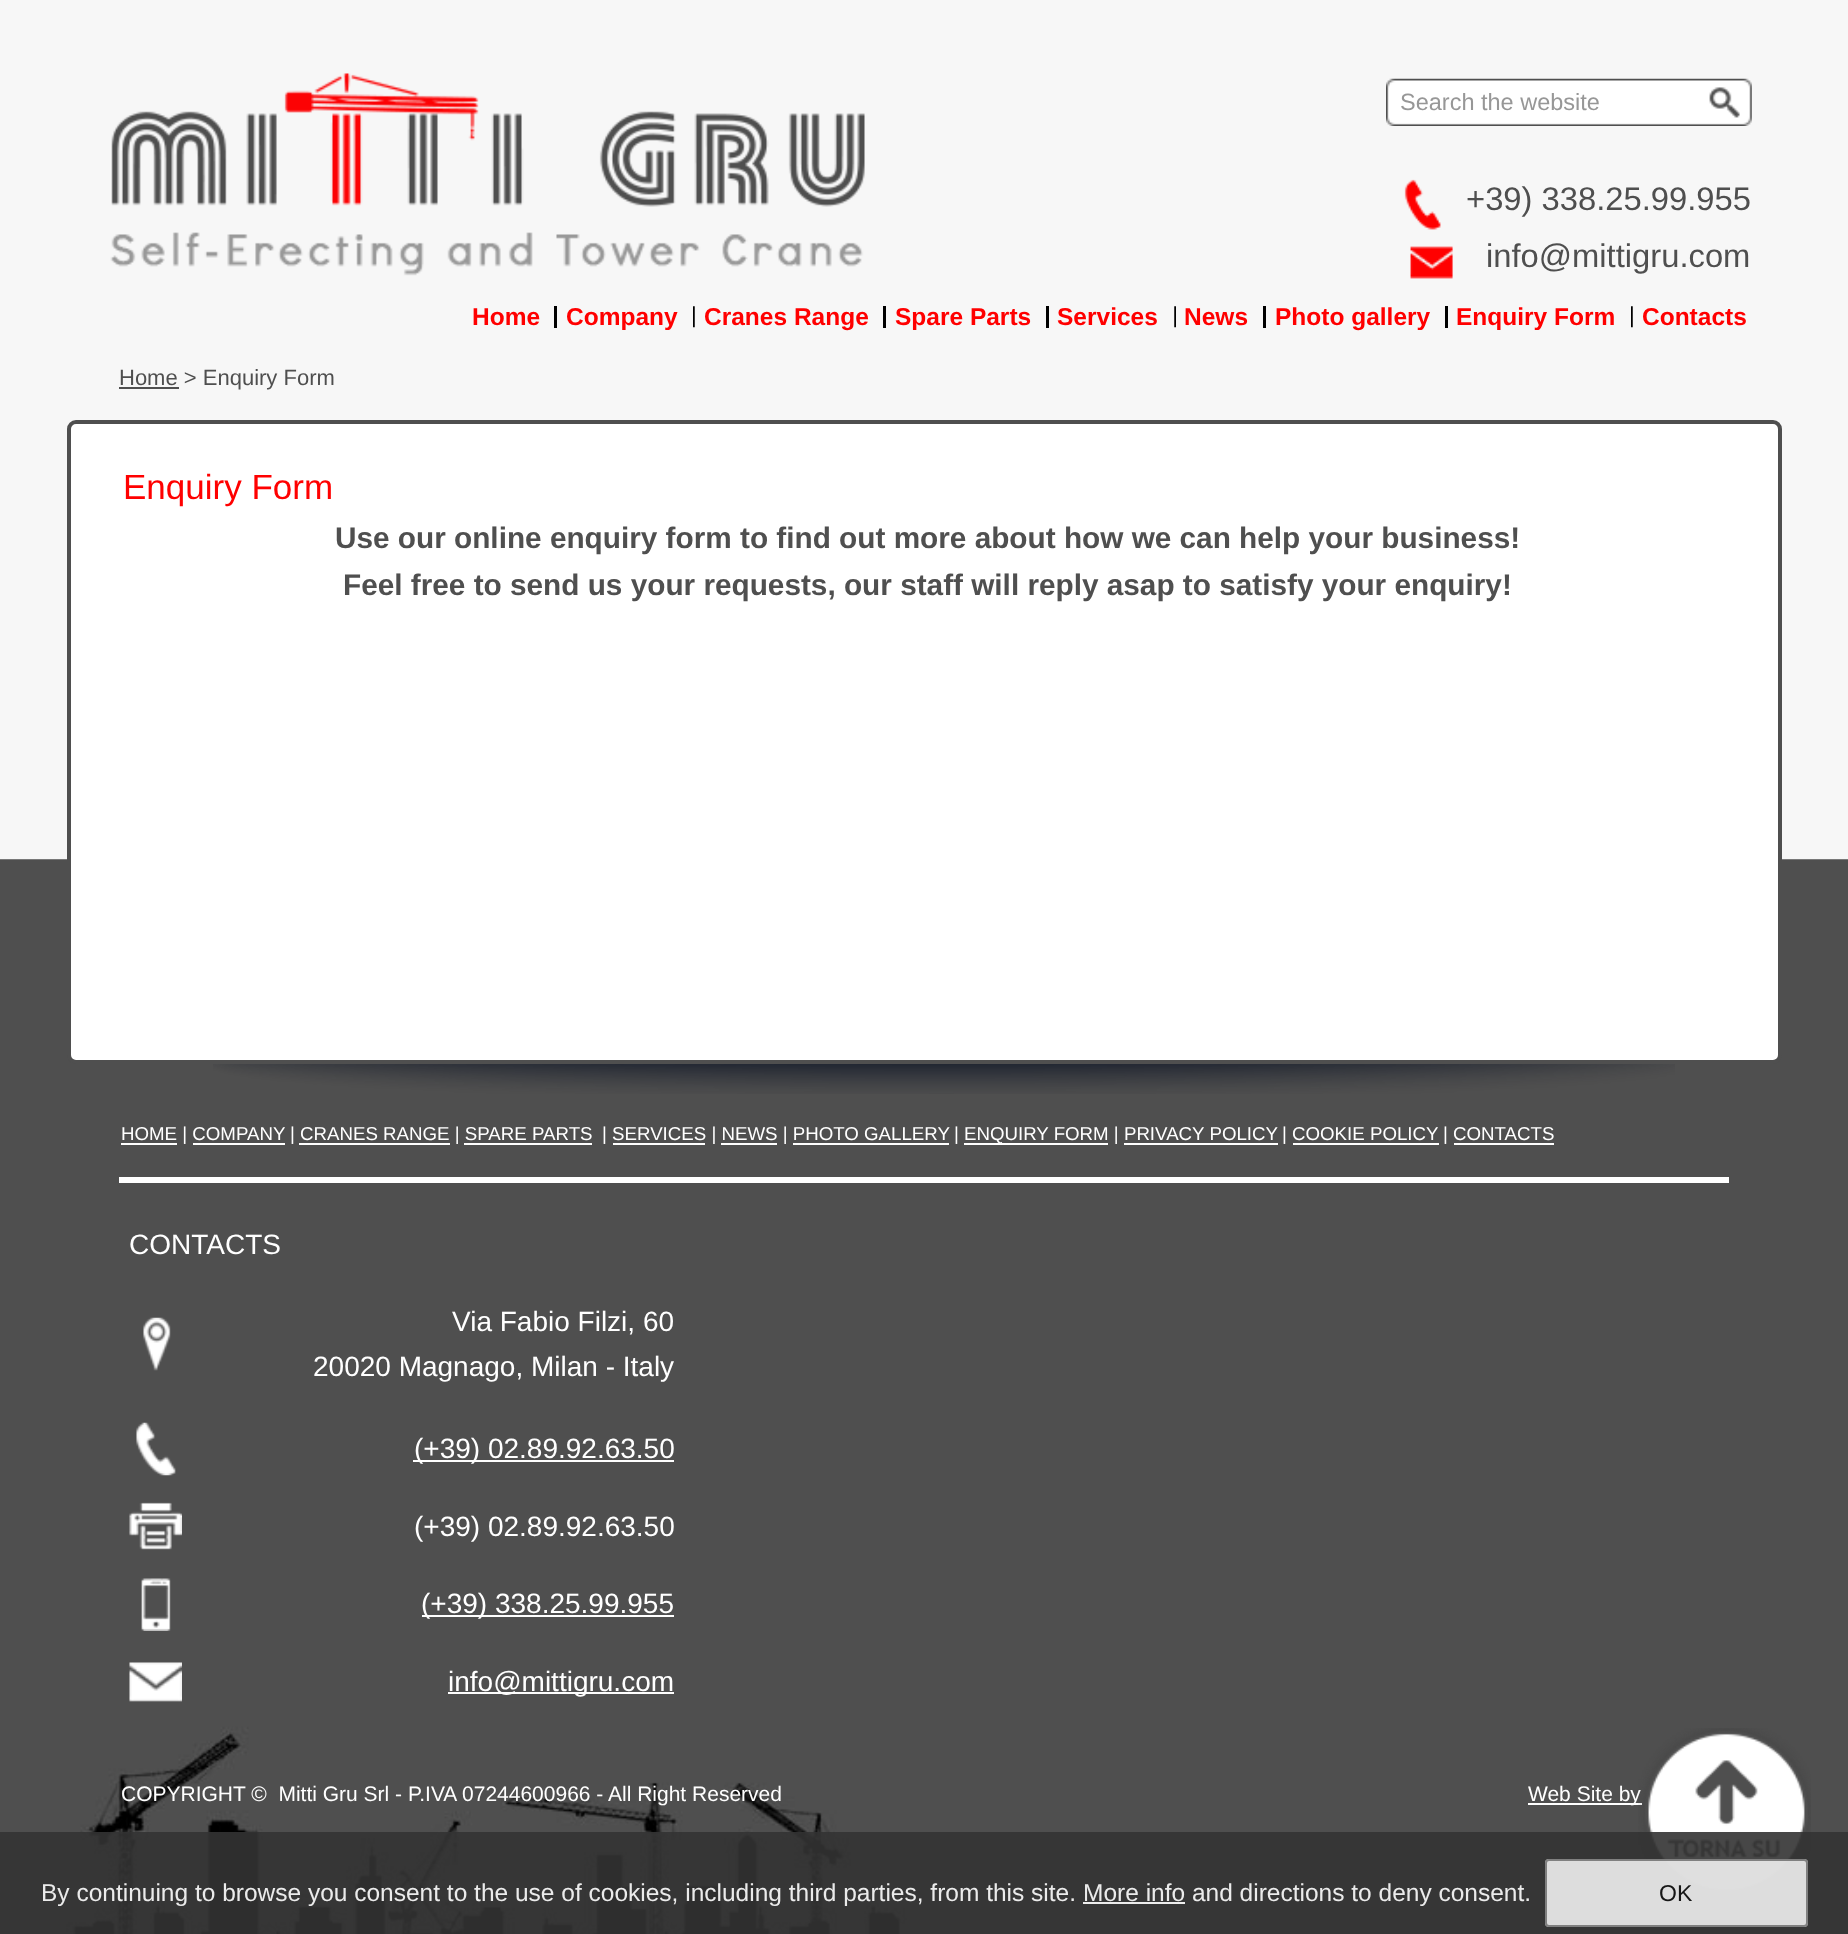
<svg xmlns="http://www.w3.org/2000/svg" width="1848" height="1934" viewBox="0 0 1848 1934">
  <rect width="100%" height="100%" fill="rgb(247,247,247)"/>
  <image x="0" y="859" width="1848" height="1075" href="pic1.png"/>
  <image x="110" y="73" width="755" height="203" href="pic2.png"/>
  <image x="1386" y="78" width="366" height="48" href="pic3.png"/>
  <text x="1400" y="110" font-family="Liberation Sans" font-size="23.5" fill="rgb(151,151,151)">Search the website</text>
  <image x="1709" y="87" width="31" height="31" href="pic4.png"/>
  <rect x="554" y="306" width="3" height="22" fill="rgb(0,0,0)"/>
  <text x="472" y="325" font-family="Liberation Sans" font-size="24.5" font-weight="bold" fill="rgb(255,0,0)">Home</text>
  <image x="693" y="306" width="2" height="22" href="pic5.png"/>
  <text x="566" y="325" font-family="Liberation Sans" font-size="24.5" font-weight="bold" fill="rgb(255,0,0)">Company</text>
  <rect x="883" y="306" width="3" height="22" fill="rgb(0,0,0)"/>
  <text x="704" y="325" font-family="Liberation Sans" font-size="24.5" font-weight="bold" fill="rgb(255,0,0)">Cranes Range</text>
  <rect x="1046" y="306" width="3" height="22" fill="rgb(0,0,0)"/>
  <text x="895" y="325" font-family="Liberation Sans" font-size="24.5" font-weight="bold" fill="rgb(255,0,0)">Spare Parts</text>
  <image x="1174" y="306" width="2" height="22" href="pic6.png"/>
  <text x="1057" y="325" font-family="Liberation Sans" font-size="24.5" font-weight="bold" fill="rgb(255,0,0)">Services</text>
  <rect x="1263" y="306" width="3" height="22" fill="rgb(0,0,0)"/>
  <text x="1184" y="325" font-family="Liberation Sans" font-size="24.5" font-weight="bold" fill="rgb(255,0,0)">News</text>
  <rect x="1445" y="306" width="3" height="22" fill="rgb(0,0,0)"/>
  <text x="1275" y="325" font-family="Liberation Sans" font-size="24.5" font-weight="bold" fill="rgb(255,0,0)">Photo gallery</text>
  <image x="1631" y="306" width="2" height="22" href="pic5.png"/>
  <g font-family="Liberation Sans" font-size="24.5" font-weight="bold" fill="rgb(255,0,0)">
    <text x="1456" y="325">Enquiry Form</text>
    <text x="1642" y="325">Contacts</text>
  </g>
  <rect x="119" y="387" width="60" height="2" fill="rgb(79,79,79)"/>
  <text x="119" y="385" font-family="Liberation Sans" font-size="22" fill="rgb(79,79,79)">Home &gt; Enquiry Form</text>
  <rect x="69" y="422" width="1711" height="640" rx="7" fill="rgb(255,255,255)" stroke="rgb(79,79,79)" stroke-width="4"/>
  <text x="123" y="499" font-family="Liberation Sans" font-size="35" fill="rgb(255,0,0)">Enquiry Form</text>
  <g font-family="Liberation Sans" font-size="29.75" font-weight="bold" fill="rgb(79,79,79)">
    <text x="335" y="548">Use our online enquiry form to find out more about how we can help your business!</text>
    <text x="343" y="595">Feel free to send us your requests, our staff will reply asap to satisfy your enquiry!</text>
  </g>
  <image x="213" y="1064" width="1462" height="30" href="pic7.png"/>
  <rect x="121" y="1143" width="56" height="2" fill="rgb(255,255,255)"/>
  <text x="121" y="1140" font-family="Liberation Sans" font-size="18.7" fill="rgb(255,255,255)">HOME | COMPANY</text>
  <rect x="193" y="1143" width="92" height="2" fill="rgb(255,255,255)"/>
  <text x="290" y="1140" font-family="Liberation Sans" font-size="18.7" fill="rgb(255,255,255)">| CRANES RANGE | SPARE PARTS</text>
  <rect x="299" y="1143" width="151" height="2" fill="rgb(255,255,255)"/>
  <rect x="464" y="1143" width="128" height="2" fill="rgb(255,255,255)"/>
  <text x="602" y="1140" font-family="Liberation Sans" font-size="18.7" fill="rgb(255,255,255)">| SERVICES | NEWS | PHOTO GALLERY</text>
  <rect x="613" y="1143" width="92" height="2" fill="rgb(255,255,255)"/>
  <rect x="721" y="1143" width="56" height="2" fill="rgb(255,255,255)"/>
  <rect x="793" y="1143" width="156" height="2" fill="rgb(255,255,255)"/>
  <text x="954" y="1140" font-family="Liberation Sans" font-size="18.7" fill="rgb(255,255,255)">|</text>
  <rect x="964" y="1143" width="144" height="2" fill="rgb(255,255,255)"/>
  <text x="964" y="1140" font-family="Liberation Sans" font-size="18.7" fill="rgb(255,255,255)">ENQUIRY FORM | PRIVACY POLICY</text>
  <rect x="1124" y="1143" width="154" height="2" fill="rgb(255,255,255)"/>
  <text x="1282" y="1140" font-family="Liberation Sans" font-size="18.7" fill="rgb(255,255,255)">| COOKIE POLICY</text>
  <rect x="1293" y="1143" width="146" height="2" fill="rgb(255,255,255)"/>
  <text x="1443" y="1140" font-family="Liberation Sans" font-size="18.7" fill="rgb(255,255,255)">| CONTACTS</text>
  <rect x="1454" y="1143" width="100" height="2" fill="rgb(255,255,255)"/>
  <rect x="119" y="1177" width="1610" height="6" fill="rgb(255,255,255)"/>
  <text x="129" y="1254" font-family="Liberation Sans" font-size="28" fill="rgb(255,255,255)">CONTACTS</text>
  <image x="143" y="1317" width="28" height="54" href="pic8.png"/>
  <g font-family="Liberation Sans" font-size="28" fill="rgb(255,255,255)">
    <text x="452" y="1331">Via Fabio Filzi, 60</text>
    <text x="313" y="1376">20020 Magnago, Milan - Italy</text>
  </g>
  <image x="136" y="1422" width="40" height="54" href="pic9.png"/>
  <rect x="413" y="1460" width="261" height="2" fill="rgb(255,255,255)"/>
  <text x="414" y="1458" font-family="Liberation Sans" font-size="28" fill="rgb(255,255,255)">(+39) 02.89.92.63.50</text>
  <image x="129" y="1502" width="53" height="48" href="pic10.png"/>
  <text x="414" y="1536" font-family="Liberation Sans" font-size="28" fill="rgb(255,255,255)">(+39) 02.89.92.63.50</text>
  <image x="141" y="1578" width="30" height="53" href="pic11.png"/>
  <rect x="422" y="1615" width="252" height="2" fill="rgb(255,255,255)"/>
  <text x="421" y="1613" font-family="Liberation Sans" font-size="28" fill="rgb(255,255,255)">(+39) 338.25.99.955</text>
  <image x="129" y="1662" width="53" height="40" href="pic12.png"/>
  <rect x="448" y="1692" width="226" height="2" fill="rgb(255,255,255)"/>
  <text x="448" y="1691" font-family="Liberation Sans" font-size="28" fill="rgb(255,255,255)">info@mittigru.com</text>
  <text x="121" y="1801" font-family="Liberation Sans" font-size="21" fill="rgb(255,255,255)" xml:space="preserve">COPYRIGHT ©  Mitti Gru Srl - P.IVA 07244600966 - All Right Reserved</text>
  <rect x="1528" y="1803" width="114" height="2" fill="rgb(255,255,255)"/>
  <text x="1528" y="1801" font-family="Liberation Sans" font-size="21" fill="rgb(255,255,255)">Web Site by</text>
  <image x="1638" y="1728" width="173" height="169" href="pic15.png"/>
  <rect x="0" y="1832" width="1848" height="102" fill="rgba(51,51,51,0.9)"/>
  <text x="41" y="1901" font-family="Liberation Sans" font-size="24.5" fill="rgb(235,235,235)">By continuing to browse you consent to the use of cookies, including third parties, from this site.</text>
  <rect x="1083" y="1902" width="102" height="2" fill="rgb(237,237,237)"/>
  <text x="1083" y="1901" font-family="Liberation Sans" font-size="24.5" fill="rgb(235,235,235)">More info and directions to deny consent.</text>
  <rect x="1545" y="1859" width="263" height="68" rx="4" fill="rgba(239,239,239,0.9)"/>
  <rect x="1546" y="1860" width="261" height="66" rx="3" fill="none" stroke="rgba(118,118,118,0.9)" stroke-width="2"/>
  <text x="1659" y="1901" font-family="Liberation Sans" font-size="23" fill="rgb(22,22,22)">OK</text>
  <image x="1404" y="179" width="37" height="51" href="pic13.png"/>
  <text x="1466" y="210" font-family="Liberation Sans" font-size="32.75" fill="rgb(79,79,79)">+39) 338.25.99.955</text>
  <image x="1410" y="246" width="43" height="33" href="pic14.png"/>
  <text x="1486" y="267" font-family="Liberation Sans" font-size="32.75" fill="rgb(79,79,79)">info@mittigru.com</text>
</svg>
